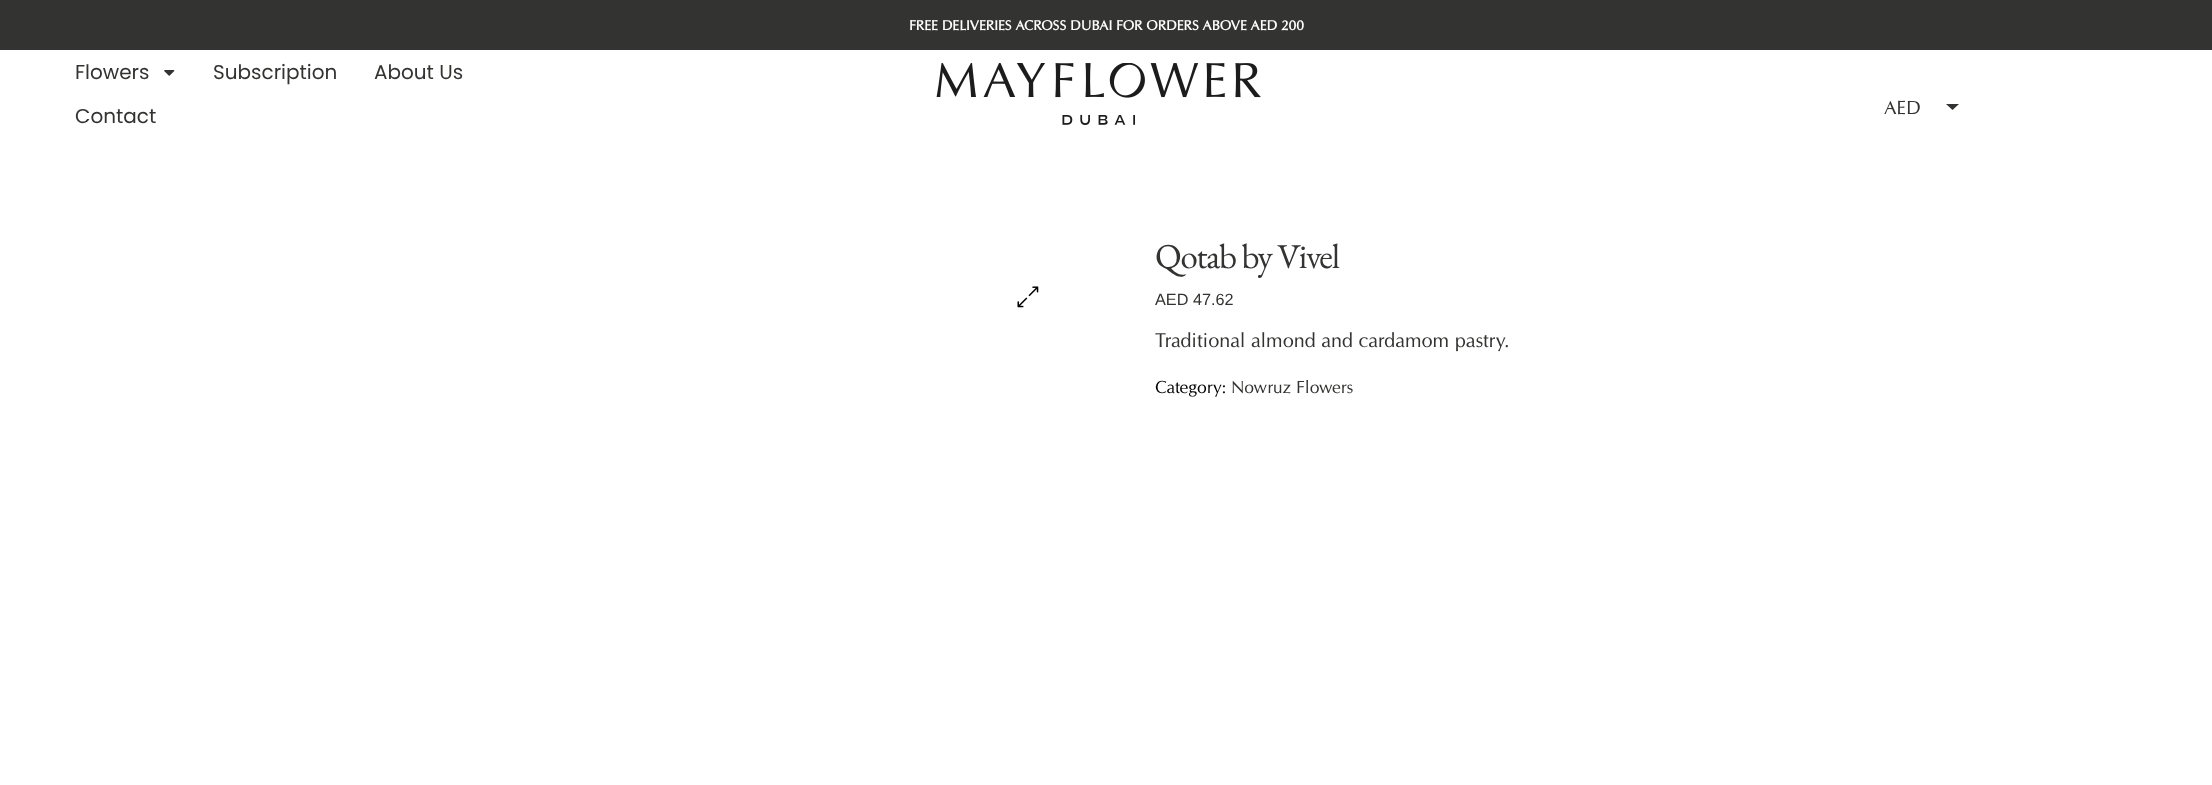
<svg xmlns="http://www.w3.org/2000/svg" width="2212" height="785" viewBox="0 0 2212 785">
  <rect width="100%" height="100%" fill="rgb(255,255,255)"/>
  <rect x="0" y="0" width="2212" height="50" fill="rgb(51,51,50)"/>
  <text x="909" y="30" font-family="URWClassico" font-size="13.75" font-weight="bold" fill="rgb(255,255,255)">FREE DELIVERIES ACROSS DUBAI FOR ORDERS ABOVE AED 200</text>
  <text x="75" y="79" font-family="Poppins" font-size="20" fill="rgb(51,51,50)">Flowers</text>
  <image x="164" y="70" width="11" height="6" href="pic1.png"/>
  <g font-family="Poppins" font-size="20" fill="rgb(51,51,50)">
    <text x="213" y="79">Subscription</text>
    <text x="374" y="79">About Us</text>
    <text x="75" y="123">Contact</text>
  </g>
  <image x="936" y="63" width="325" height="62" href="pic2.png"/>
  <text x="1884" y="114" font-family="URWClassico" font-size="19" fill="rgb(51,51,50)">AED</text>
  <path d="M1946 104H1959L1952.5 110Z" fill="rgb(51,51,50)"/>
  <image x="1017" y="286" width="22" height="22" href="pic3.png"/>
  <text x="1155" y="268" font-family="EB Garamond" font-size="35" letter-spacing="-1.25" fill="rgb(51,51,50)">Qotab by Vivel</text>
  <text x="1155" y="305" font-family="Liberation Sans" font-size="16.25" fill="rgb(51,51,50)">AED 47.62</text>
  <text x="1155" y="347" font-family="URWClassico" font-size="20" fill="rgb(51,51,50)">Traditional almond and cardamom pastry.</text>
  <text x="1155" y="393" font-family="URWClassico" font-size="17.5" fill="rgb(0,0,0)">Category:</text>
  <text x="1231" y="393" font-family="URWClassico" font-size="17.5" fill="rgb(51,51,50)">Nowruz Flowers</text>
</svg>
